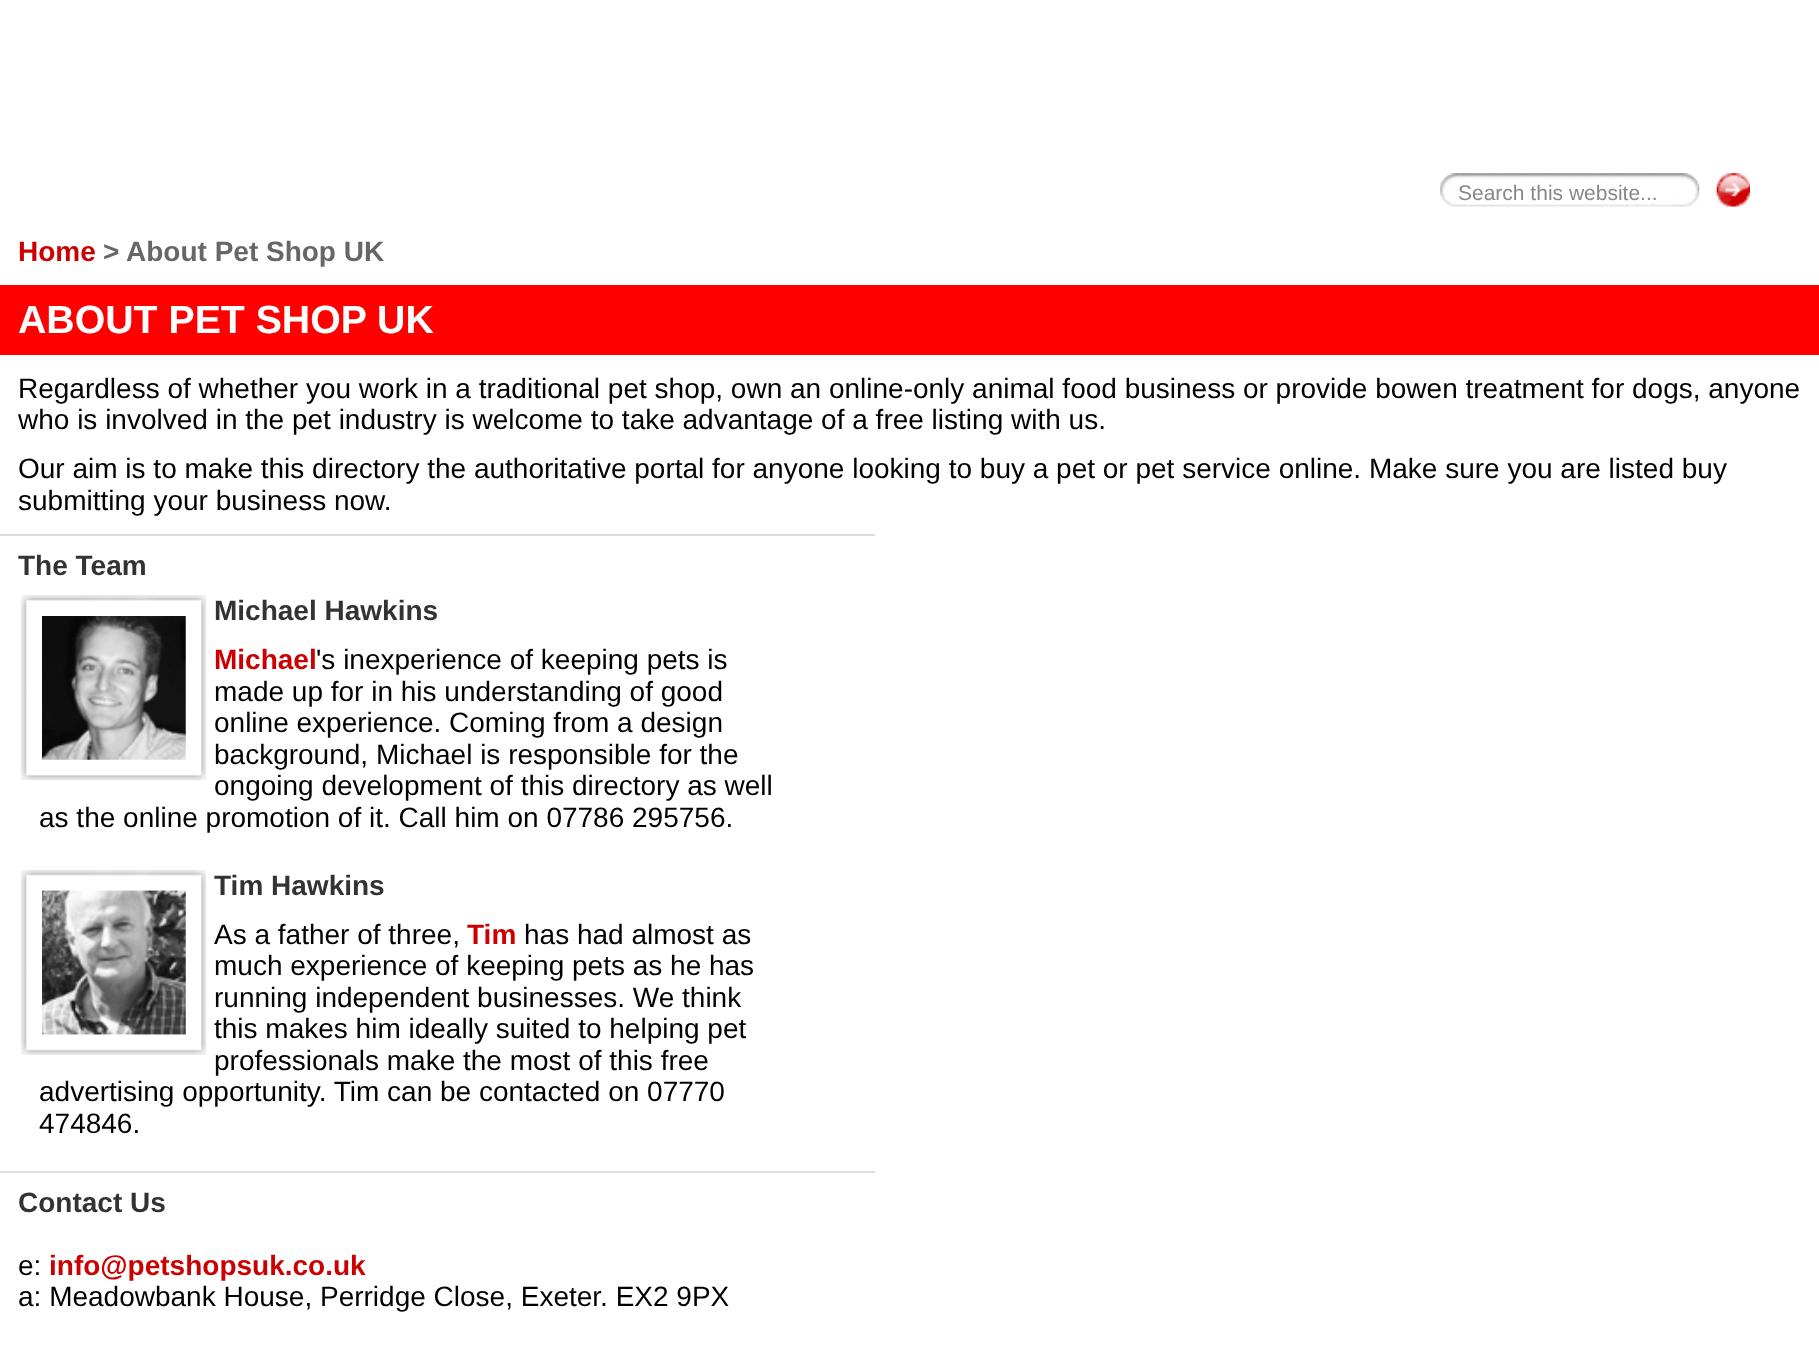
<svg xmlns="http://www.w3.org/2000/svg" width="1819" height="1355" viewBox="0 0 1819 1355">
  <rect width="100%" height="100%" fill="rgb(255,255,255)"/>
  <image x="1440" y="173" width="260" height="34" href="pic1.png"/>
  <text x="1458" y="200" font-family="Liberation Sans" font-size="21" fill="rgb(136,136,136)">Search this website...</text>
  <image x="1716" y="173" width="34" height="34" href="pic2.png"/>
  <text x="18" y="261" font-family="Liberation Sans" font-size="28" font-weight="bold" fill="rgb(204,0,0)">Home</text>
  <g font-family="Liberation Sans" font-size="28" font-weight="bold" fill="rgb(103,103,103)">
    <text x="103" y="261">&gt;</text>
    <text x="126" y="261">About Pet Shop UK</text>
  </g>
  <rect x="0" y="285" width="1819" height="70" fill="rgb(255,0,0)"/>
  <text x="18" y="333" font-family="Liberation Sans" font-size="39.25" font-weight="bold" fill="rgb(255,255,255)">ABOUT PET SHOP UK</text>
  <g font-family="Liberation Sans" font-size="28" fill="rgb(0,0,0)">
    <text>
      <tspan x="18" y="398">Regardless of whether you work in a traditional pet shop, own an online-only animal food business or provide bowen treatment for dogs, anyone</tspan>
      <tspan x="18" y="429">who is involved in the pet industry is welcome to take advantage of a free listing with us.</tspan>
      <tspan x="18" y="478">Our aim is to make this directory the authoritative portal for anyone looking to buy a pet or pet service online. Make sure you are listed buy</tspan>
      <tspan x="18" y="510">submitting your business now.</tspan>
    </text>
  </g>
  <rect x="0" y="534" width="875" height="2" fill="rgb(221,221,221)"/>
  <text x="18" y="575" font-family="Liberation Sans" font-size="28" font-weight="bold" fill="rgb(51,51,51)">The Team</text>
  <image x="21" y="595" width="186" height="186" href="pic3.png"/>
  <image x="42" y="616" width="144" height="144" href="pic4.png"/>
  <text x="214" y="620" font-family="Liberation Sans" font-size="28" font-weight="bold" fill="rgb(51,51,51)">Michael Hawkins</text>
  <text x="214" y="669" font-family="Liberation Sans" font-size="28" font-weight="bold" fill="rgb(204,0,0)">Michael</text>
  <g font-family="Liberation Sans" font-size="28" fill="rgb(0,0,0)">
    <text x="316" y="669">'s inexperience of keeping pets is</text>
    <text>
      <tspan x="214" y="701">made up for in his understanding of good</tspan>
      <tspan x="214" y="732">online experience. Coming from a design</tspan>
      <tspan x="214" y="764">background, Michael is responsible for the</tspan>
      <tspan x="214" y="795">ongoing development of this directory as well</tspan>
    </text>
    <text x="39" y="827">as the online promotion of it. Call him on 07786 295756.</text>
  </g>
  <image x="21" y="870" width="186" height="185" href="pic5.png"/>
  <image x="42" y="890" width="144" height="145" href="pic6.png"/>
  <text x="214" y="895" font-family="Liberation Sans" font-size="28" font-weight="bold" fill="rgb(51,51,51)">Tim Hawkins</text>
  <text x="214" y="944" font-family="Liberation Sans" font-size="28" fill="rgb(0,0,0)">As a father of three,</text>
  <text x="467" y="944" font-family="Liberation Sans" font-size="28" font-weight="bold" fill="rgb(204,0,0)">Tim</text>
  <g font-family="Liberation Sans" font-size="28" fill="rgb(0,0,0)">
    <text x="524" y="944">has had almost as</text>
    <text>
      <tspan x="214" y="975">much experience of keeping pets as he has</tspan>
      <tspan x="214" y="1007">running independent businesses. We think</tspan>
      <tspan x="214" y="1038">this makes him ideally suited to helping pet</tspan>
      <tspan x="214" y="1070">professionals make the most of this free</tspan>
    </text>
    <text>
      <tspan x="39" y="1101">advertising opportunity. Tim can be contacted on 07770</tspan>
      <tspan x="39" y="1133">474846.</tspan>
    </text>
  </g>
  <rect x="0" y="1171" width="875" height="2" fill="rgb(221,221,221)"/>
  <text x="18" y="1212" font-family="Liberation Sans" font-size="28" font-weight="bold" fill="rgb(51,51,51)">Contact Us</text>
  <text x="18" y="1275" font-family="Liberation Sans" font-size="28" fill="rgb(0,0,0)">e:</text>
  <text x="49" y="1275" font-family="Liberation Sans" font-size="28" font-weight="bold" fill="rgb(204,0,0)">info@petshopsuk.co.uk</text>
  <text x="18" y="1306" font-family="Liberation Sans" font-size="28" fill="rgb(0,0,0)">a: Meadowbank House, Perridge Close, Exeter. EX2 9PX</text>
</svg>
